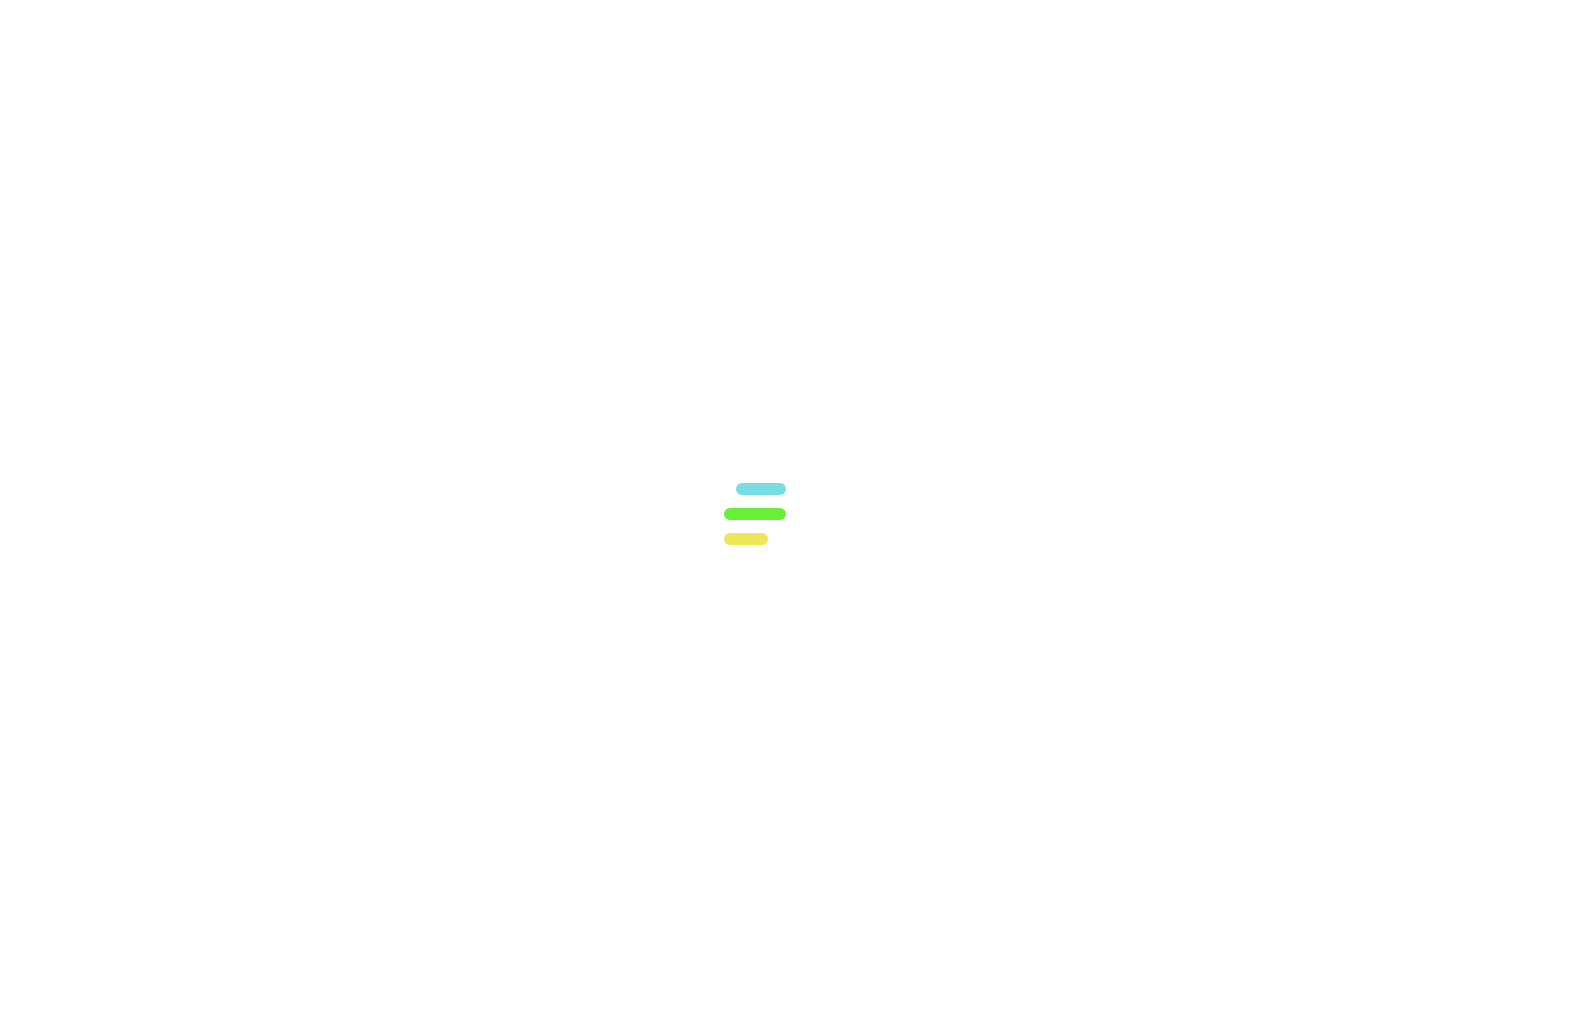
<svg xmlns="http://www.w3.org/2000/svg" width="1571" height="1027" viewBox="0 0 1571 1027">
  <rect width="100%" height="100%" fill="rgb(255,255,255)"/>
  <rect x="724" y="508" width="62" height="12" rx="6" fill="rgb(104,239,55)"/>
  <rect x="736" y="483" width="50" height="12" rx="6" fill="rgb(120,221,226)"/>
  <rect x="724" y="533" width="44" height="12" rx="6" fill="rgb(239,232,86)"/>
</svg>
